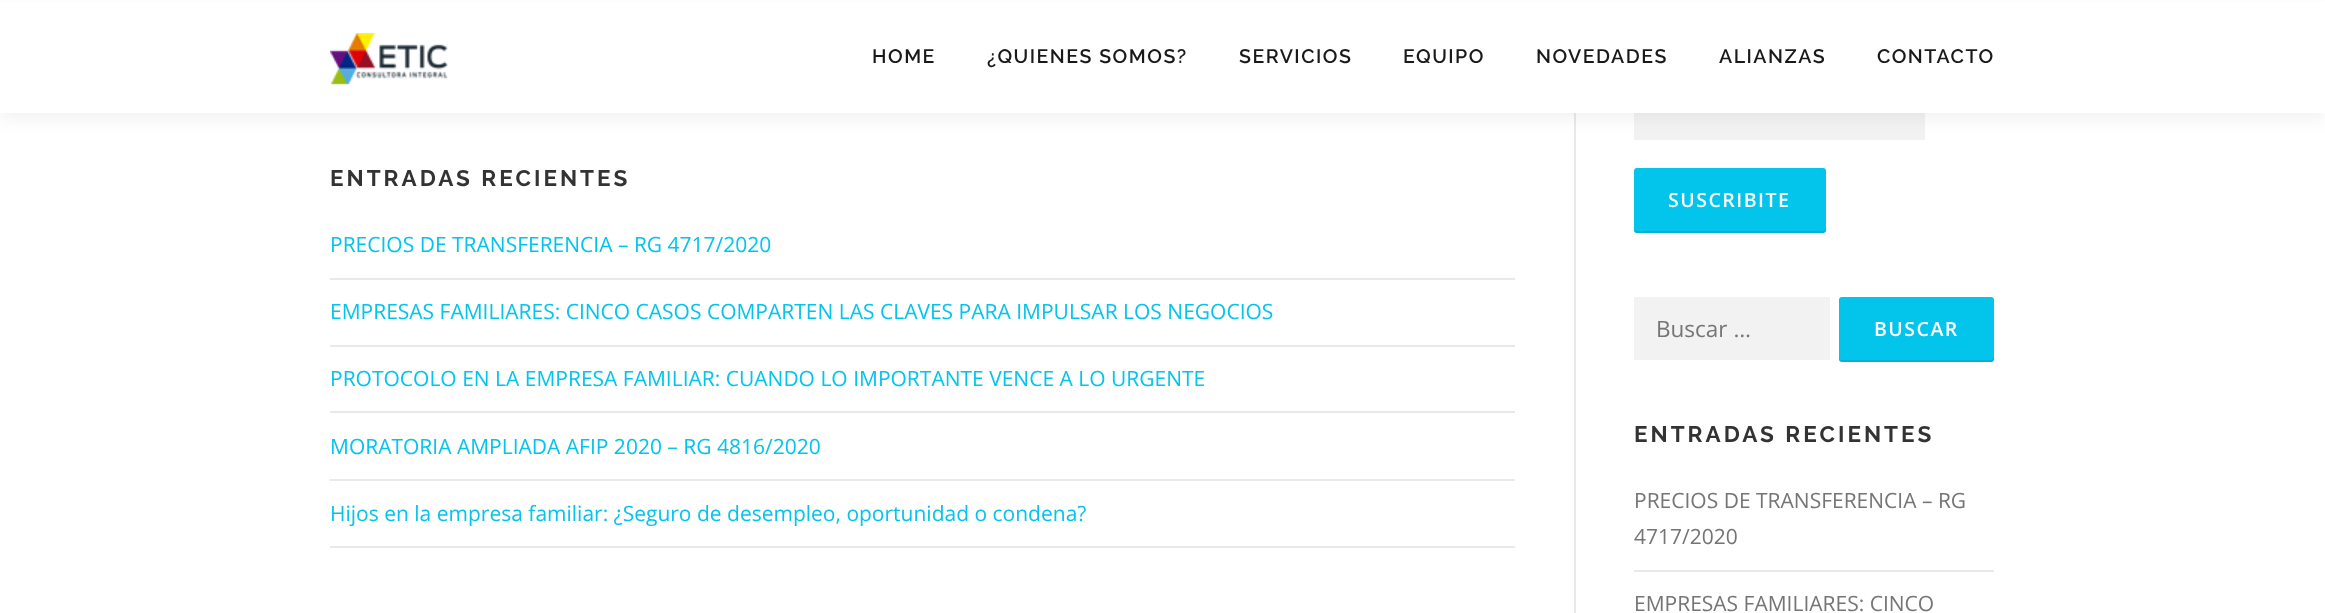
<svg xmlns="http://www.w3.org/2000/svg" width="2325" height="613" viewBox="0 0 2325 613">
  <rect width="100%" height="100%" fill="rgb(255,255,255)"/>
  <rect x="1574" y="113" width="2" height="500" fill="rgb(233,233,233)"/>
  <rect x="1634" y="113" width="291" height="27" fill="rgb(242,242,242)"/>
  <rect x="0" y="8" width="2325" height="112" fill="rgba(50,50,50,0.06)" filter="blur(7.5px)"/>
  <rect x="0" y="2" width="2325" height="111" fill="rgb(255,255,255)"/>
  <image x="330" y="33" width="118" height="52" href="pic1.png"/>
  <g font-family="Raleway" font-size="19.5" font-weight="600" letter-spacing="1.5" fill="rgb(25,25,25)">
    <text x="872" y="63">HOME</text>
    <text x="987" y="63">¿QUIENES SOMOS?</text>
    <text x="1239" y="63">SERVICIOS</text>
    <text x="1403" y="63">EQUIPO</text>
    <text x="1536" y="63">NOVEDADES</text>
    <text x="1719" y="63">ALIANZAS</text>
    <text x="1877" y="63">CONTACTO</text>
  </g>
  <text x="330" y="186" font-family="Raleway" font-size="22.5" font-weight="bold" letter-spacing="3" fill="rgb(51,51,51)">ENTRADAS RECIENTES</text>
  <rect x="330" y="278" width="1185" height="2" fill="rgb(233,233,233)"/>
  <text x="330" y="252" font-family="Open Sans" font-size="21" fill="rgb(3,196,235)">PRECIOS DE TRANSFERENCIA – RG 4717/2020</text>
  <rect x="330" y="345" width="1185" height="2" fill="rgb(233,233,233)"/>
  <text x="330" y="319" font-family="Open Sans" font-size="21" fill="rgb(3,196,235)">EMPRESAS FAMILIARES: CINCO CASOS COMPARTEN LAS CLAVES PARA IMPULSAR LOS NEGOCIOS</text>
  <rect x="330" y="411" width="1185" height="2" fill="rgb(233,233,233)"/>
  <text x="330" y="386" font-family="Open Sans" font-size="21" fill="rgb(3,196,235)">PROTOCOLO EN LA EMPRESA FAMILIAR: CUANDO LO IMPORTANTE VENCE A LO URGENTE</text>
  <rect x="330" y="479" width="1185" height="2" fill="rgb(233,233,233)"/>
  <text x="330" y="454" font-family="Open Sans" font-size="21" fill="rgb(3,196,235)">MORATORIA AMPLIADA AFIP 2020 – RG 4816/2020</text>
  <rect x="330" y="546" width="1185" height="2" fill="rgb(233,233,233)"/>
  <text x="330" y="521" font-family="Open Sans" font-size="21" fill="rgb(3,196,235)">Hijos en la empresa familiar: ¿Seguro de desempleo, oportunidad o condena?</text>
  <rect x="1634" y="168" width="192" height="65" rx="3" fill="rgb(3,196,235)"/>
  <path d="M1634 228C1634 230 1634 232 1636 233H1824C1826 232 1826 230 1826 228C1826 230 1824 231 1822 231H1636C1635 231 1634 230 1634 228Z" fill="rgba(0,0,0,0.1)"/>
  <text x="1668" y="207" font-family="Open Sans" font-size="19.5" font-weight="600" letter-spacing="1.5" fill="rgb(255,255,255)">SUSCRIBITE</text>
  <rect x="1634" y="297" width="196" height="63" fill="rgb(242,242,242)"/>
  <text x="1656" y="337" font-family="Open Sans" font-size="22.5" fill="rgb(117,117,117)">Buscar …</text>
  <rect x="1839" y="297" width="155" height="65" rx="3" fill="rgb(3,196,235)"/>
  <path d="M1839 357V359C1839 361 1840 362 1842 362H1991C1993 362 1994 361 1994 359V357C1994 359 1992 360 1990 360H1842C1840 360 1839 359 1839 357Z" fill="rgba(0,0,0,0.1)"/>
  <text x="1874" y="336" font-family="Open Sans" font-size="19.5" font-weight="600" letter-spacing="1.5" fill="rgb(255,255,255)">BUSCAR</text>
  <text x="1634" y="442" font-family="Raleway" font-size="22.5" font-weight="bold" letter-spacing="3" fill="rgb(51,51,51)">ENTRADAS RECIENTES</text>
  <rect x="1634" y="570" width="360" height="2" fill="rgb(233,233,233)"/>
  <g font-family="Open Sans" font-size="21" fill="rgb(117,117,117)">
    <text>
      <tspan x="1634" y="508">PRECIOS DE TRANSFERENCIA – RG</tspan>
      <tspan x="1634" y="544">4717/2020</tspan>
    </text>
    <text x="1634" y="611">EMPRESAS FAMILIARES: CINCO</text>
  </g>
</svg>
